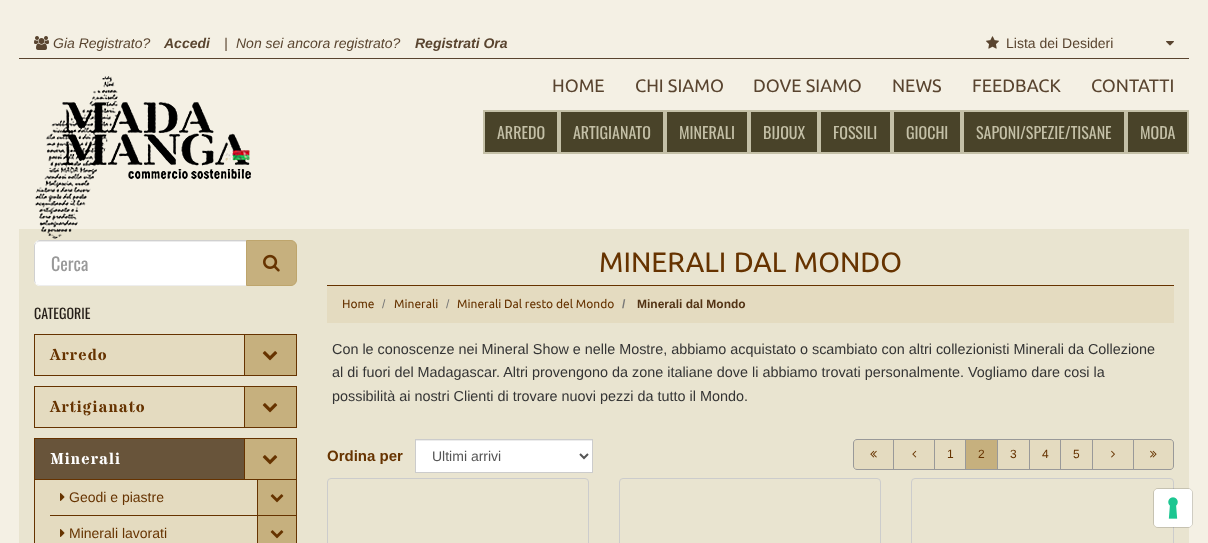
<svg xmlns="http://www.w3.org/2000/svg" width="1208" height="543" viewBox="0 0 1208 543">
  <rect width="100%" height="100%" fill="rgb(244,240,228)"/>
  <rect x="19" y="58" width="1170" height="1" fill="rgb(89,68,47)"/>
  <image x="34" y="36" width="15" height="14" href="pic1.png"/>
  <text x="53" y="48" font-family="Liberation Sans" font-size="14" font-style="italic" fill="rgb(89,68,47)">Gia Registrato?</text>
  <text x="164" y="48" font-family="Liberation Sans" font-size="14" font-weight="bold" font-style="italic" fill="rgb(89,68,47)">Accedi</text>
  <g font-family="Liberation Sans" font-size="14" font-style="italic" fill="rgb(89,68,47)">
    <text x="224" y="48">|</text>
    <text x="236" y="48">Non sei ancora registrato?</text>
  </g>
  <text x="415" y="48" font-family="Liberation Sans" font-size="14" font-weight="bold" font-style="italic" fill="rgb(89,68,47)">Registrati Ora</text>
  <image x="986" y="36" width="13" height="13" href="pic2.png"/>
  <text x="1006" y="48" font-family="Liberation Sans" font-size="14" fill="rgb(89,68,47)">Lista dei Desideri</text>
  <image x="1166" y="41" width="8" height="5" href="pic3.png"/>
  <rect x="19" y="229" width="1170" height="314" fill="rgb(233,228,208)"/>
  <image x="35" y="76" width="216" height="163" href="pic4.png"/>
  <g font-family="Ubuntu" font-size="18" fill="rgb(89,68,47)">
    <text x="552" y="92">HOME</text>
    <text x="635" y="92">CHI SIAMO</text>
    <text x="753" y="92">DOVE SIAMO</text>
    <text x="892" y="92">NEWS</text>
    <text x="972" y="92">FEEDBACK</text>
    <text x="1091" y="92">CONTATTI</text>
  </g>
  <rect x="484" y="111" width="74" height="42" fill="rgb(73,67,41)" stroke="rgb(196,192,167)" stroke-width="2"/>
  <text x="497" y="139" font-family="Oswald" font-size="16" fill="rgb(196,192,167)">ARREDO</text>
  <rect x="560" y="111" width="104" height="42" fill="rgb(73,67,41)" stroke="rgb(196,192,167)" stroke-width="2"/>
  <text x="573" y="139" font-family="Oswald" font-size="16" fill="rgb(196,192,167)">ARTIGIANATO</text>
  <rect x="666" y="111" width="82" height="42" fill="rgb(73,67,41)" stroke="rgb(196,192,167)" stroke-width="2"/>
  <text x="679" y="139" font-family="Oswald" font-size="16" fill="rgb(196,192,167)">MINERALI</text>
  <rect x="750" y="111" width="68" height="42" fill="rgb(73,67,41)" stroke="rgb(196,192,167)" stroke-width="2"/>
  <text x="763" y="139" font-family="Oswald" font-size="16" fill="rgb(196,192,167)">BIJOUX</text>
  <rect x="820" y="111" width="71" height="42" fill="rgb(73,67,41)" stroke="rgb(196,192,167)" stroke-width="2"/>
  <text x="833" y="139" font-family="Oswald" font-size="16" fill="rgb(196,192,167)">FOSSILI</text>
  <rect x="893" y="111" width="68" height="42" fill="rgb(73,67,41)" stroke="rgb(196,192,167)" stroke-width="2"/>
  <text x="906" y="139" font-family="Oswald" font-size="16" fill="rgb(196,192,167)">GIOCHI</text>
  <rect x="963" y="111" width="162" height="42" fill="rgb(73,67,41)" stroke="rgb(196,192,167)" stroke-width="2"/>
  <text x="976" y="139" font-family="Oswald" font-size="16" fill="rgb(196,192,167)">SAPONI/SPEZIE/TISANE</text>
  <rect x="1127" y="111" width="61" height="42" fill="rgb(73,67,41)" stroke="rgb(196,192,167)" stroke-width="2"/>
  <text x="1140" y="139" font-family="Oswald" font-size="16" fill="rgb(196,192,167)">MODA</text>
  <path d="M40 240H247V286H40C36.5 286 34 283.5 34 280V246C34 242.5 36.5 240 40 240Z" fill="rgb(255,255,255)"/>
  <path d="M40 242H246V241H39C36 242 35 244 35 247C35 244 37 242 40 242Z" fill="rgb(236,236,236)"/>
  <path d="M40 240C38 240 37 241 36 242C37 242 38 241 40 241H246L247 240Z" fill="rgb(208,208,208)"/>
  <path d="M247 286L246 285H40C38 285 37 284 36 284C37 285 38 286 40 286Z" fill="rgb(238,238,238)"/>
  <path d="M34 246V280C34 282 35 283 36 284C36 283 35 282 35 280V246C35 244 36 243 36 242C35 243 34 244 34 246Z" fill="rgb(208,208,208)"/>
  <text x="51" y="271" font-family="Oswald" font-size="18" fill="rgb(153,153,153)">Cerca</text>
  <path d="M246.5 240.5H291C294 240.5 296.5 243 296.5 246V280C296.5 283 294 285.5 291 285.5H246.5Z" fill="rgb(198,176,126)" stroke="rgb(190,165,108)"/>
  <image x="263" y="254" width="17" height="18" href="pic5.png"/>
  <text x="34" y="319" font-family="Oswald" font-size="14" fill="rgb(37,30,24)">CATEGORIE</text>
  <rect x="35" y="335" width="209" height="40" fill="rgb(228,219,192)"/>
  <rect x="34.5" y="334.5" width="262" height="41" fill="none" stroke="rgb(102,51,0)"/>
  <text x="50" y="360" font-family="Stardos Stencil" font-size="16" font-weight="bold" letter-spacing="1" fill="rgb(102,51,0)">Arredo</text>
  <rect x="245" y="335" width="51" height="40" fill="rgb(198,176,126)"/>
  <rect x="244" y="335" width="1" height="40" fill="rgb(102,51,0)"/>
  <image x="262" y="351" width="16" height="10" href="pic6.png"/>
  <rect x="35" y="387" width="209" height="40" fill="rgb(228,219,192)"/>
  <rect x="34.5" y="386.5" width="262" height="41" fill="none" stroke="rgb(102,51,0)"/>
  <text x="50" y="412" font-family="Stardos Stencil" font-size="16" font-weight="bold" letter-spacing="1" fill="rgb(102,51,0)">Artigianato</text>
  <rect x="245" y="387" width="51" height="40" fill="rgb(198,176,126)"/>
  <rect x="244" y="387" width="1" height="40" fill="rgb(102,51,0)"/>
  <image x="262" y="403" width="16" height="10" href="pic6.png"/>
  <rect x="35" y="480" width="222" height="63" fill="rgb(228,219,192)"/>
  <rect x="34.5" y="438.5" width="262" height="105" fill="none" stroke="rgb(102,51,0)"/>
  <rect x="35" y="439" width="209" height="40" fill="rgb(104,84,58)"/>
  <text x="50" y="464" font-family="Stardos Stencil" font-size="16" font-weight="bold" letter-spacing="1" fill="rgb(255,255,255)">Minerali</text>
  <rect x="245" y="439" width="51" height="40" fill="rgb(198,176,126)"/>
  <rect x="244" y="439" width="1" height="40" fill="rgb(102,51,0)"/>
  <image x="262" y="455" width="16" height="10" href="pic6.png"/>
  <rect x="35" y="479" width="261" height="1" fill="rgb(102,51,0)"/>
  <rect x="50" y="515" width="246" height="1" fill="rgb(102,51,0)"/>
  <image x="60" y="493" width="5" height="8" href="pic7.png"/>
  <text x="69" y="502" font-family="Liberation Sans" font-size="14" fill="rgb(102,51,0)">Geodi e piastre</text>
  <rect x="258" y="480" width="38" height="35" fill="rgb(198,176,126)"/>
  <rect x="257" y="480" width="1" height="35" fill="rgb(102,51,0)"/>
  <image x="270" y="494" width="14" height="9" href="pic8.png"/>
  <image x="60" y="529" width="5" height="8" href="pic7.png"/>
  <text x="69" y="538" font-family="Liberation Sans" font-size="14" fill="rgb(102,51,0)">Minerali lavorati</text>
  <rect x="258" y="516" width="38" height="27" fill="rgb(198,176,126)"/>
  <rect x="257" y="516" width="1" height="27" fill="rgb(102,51,0)"/>
  <image x="270" y="530" width="14" height="9" href="pic8.png"/>
  <text x="599" y="272" word-spacing="1" font-family="Ubuntu" font-size="28" fill="rgb(102,51,0)">MINERALI DAL MONDO</text>
  <rect x="327" y="285" width="847" height="1" fill="rgb(102,51,0)"/>
  <rect x="327" y="286" width="847" height="37" fill="rgb(228,219,192)"/>
  <text x="342" y="308" font-family="Ubuntu" font-size="12" fill="rgb(102,51,0)">Home</text>
  <text x="382" y="308" font-family="Liberation Sans" font-size="12" fill="rgb(119,119,119)">/</text>
  <text x="394" y="308" font-family="Ubuntu" font-size="12" fill="rgb(102,51,0)">Minerali</text>
  <text x="446" y="308" font-family="Liberation Sans" font-size="12" fill="rgb(119,119,119)">/</text>
  <text x="457" y="308" font-family="Ubuntu" font-size="12" fill="rgb(102,51,0)">Minerali Dal resto del Mondo</text>
  <text x="622" y="308" font-family="Liberation Sans" font-size="12" font-weight="bold" fill="rgb(119,119,119)">/</text>
  <text x="637" y="308" font-family="Liberation Sans" font-size="12" font-weight="bold" fill="rgb(82,51,20)">Minerali dal Mondo</text>
  <g font-family="Liberation Sans" font-size="14.4" fill="rgb(52,52,52)">
    <text>
      <tspan x="332" y="354">Con le conoscenze nei Mineral Show e nelle Mostre, abbiamo acquistato o scambiato con altri collezionisti Minerali da Collezione</tspan>
      <tspan x="332" y="377">al di fuori del Madagascar. Altri provengono da zone italiane dove li abbiamo trovati personalmente. Vogliamo dare cosi la</tspan>
      <tspan x="332" y="401">possibilità ai nostri Clienti di trovare nuovi pezzi da tutto il Mondo.</tspan>
    </text>
  </g>
  <text x="327" y="461" font-family="Liberation Sans" font-size="15" font-weight="bold" fill="rgb(102,51,0)">Ordina per</text>
  <rect x="416" y="441" width="176" height="31" fill="rgb(255,255,255)"/>
  <rect x="416" y="440" width="176" height="1" fill="rgb(236,236,236)"/>
  <rect x="415.5" y="439.5" width="177" height="33" fill="none" stroke="rgb(204,204,204)"/>
  <path d="M580 454L584 458L588 454" fill="none" stroke="rgb(85,85,85)" stroke-width="2"/>
  <text x="432" y="461" font-family="Liberation Sans" font-size="14" fill="rgb(85,85,85)">Ultimi arrivi</text>
  <path d="M857 439.5H893.5V469.5H857C855 469.5 853.5 468 853.5 466V443C853.5 441 855 439.5 857 439.5Z" fill="rgb(228,219,192)" stroke="rgb(153,153,153)"/>
  <image x="870" y="450" width="7" height="8" href="pic9.png"/>
  <rect x="893.5" y="439.5" width="41" height="30" fill="rgb(228,219,192)" stroke="rgb(153,153,153)"/>
  <image x="912" y="450" width="5" height="8" href="pic10.png"/>
  <rect x="934.5" y="439.5" width="31" height="30" fill="rgb(228,219,192)" stroke="rgb(153,153,153)"/>
  <text x="947" y="458" font-family="Liberation Sans" font-size="12" fill="rgb(102,51,0)">1</text>
  <rect x="997.5" y="439.5" width="32" height="30" fill="rgb(228,219,192)" stroke="rgb(153,153,153)"/>
  <rect x="965.5" y="439.5" width="32" height="30" fill="rgb(198,176,126)" stroke="rgb(153,153,153)"/>
  <g font-family="Liberation Sans" font-size="12" fill="rgb(102,51,0)">
    <text x="978" y="458">2</text>
    <text x="1010" y="458">3</text>
  </g>
  <rect x="1029.5" y="439.5" width="31" height="30" fill="rgb(228,219,192)" stroke="rgb(153,153,153)"/>
  <text x="1042" y="458" font-family="Liberation Sans" font-size="12" fill="rgb(102,51,0)">4</text>
  <rect x="1060.5" y="439.5" width="32" height="30" fill="rgb(228,219,192)" stroke="rgb(153,153,153)"/>
  <text x="1073" y="458" font-family="Liberation Sans" font-size="12" fill="rgb(102,51,0)">5</text>
  <rect x="1092.5" y="439.5" width="41" height="30" fill="rgb(228,219,192)" stroke="rgb(153,153,153)"/>
  <image x="1111" y="450" width="4" height="8" href="pic11.png"/>
  <path d="M1133.5 439.5H1170C1172 439.5 1173.5 441 1173.5 443V466C1173.5 468 1172 469.5 1170 469.5H1133.5Z" fill="rgb(228,219,192)" stroke="rgb(153,153,153)"/>
  <image x="1150" y="450" width="7" height="8" href="pic12.png"/>
  <rect x="327.5" y="478.5" width="261" height="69" rx="3.5" fill="none" stroke="rgb(204,204,204)"/>
  <rect x="619.5" y="478.5" width="261" height="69" rx="3.5" fill="none" stroke="rgb(204,204,204)"/>
  <rect x="911.5" y="478.5" width="262" height="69" rx="3.5" fill="none" stroke="rgb(204,204,204)"/>
  <rect x="1153.5" y="488.5" width="39" height="39" rx="4.5" fill="none" stroke="rgba(0,0,0,0.15)"/>
  <rect x="1154" y="489" width="38" height="38" rx="4" fill="rgb(255,255,255)"/>
  <image x="1168" y="497" width="10" height="22" href="pic13.png"/>
</svg>
